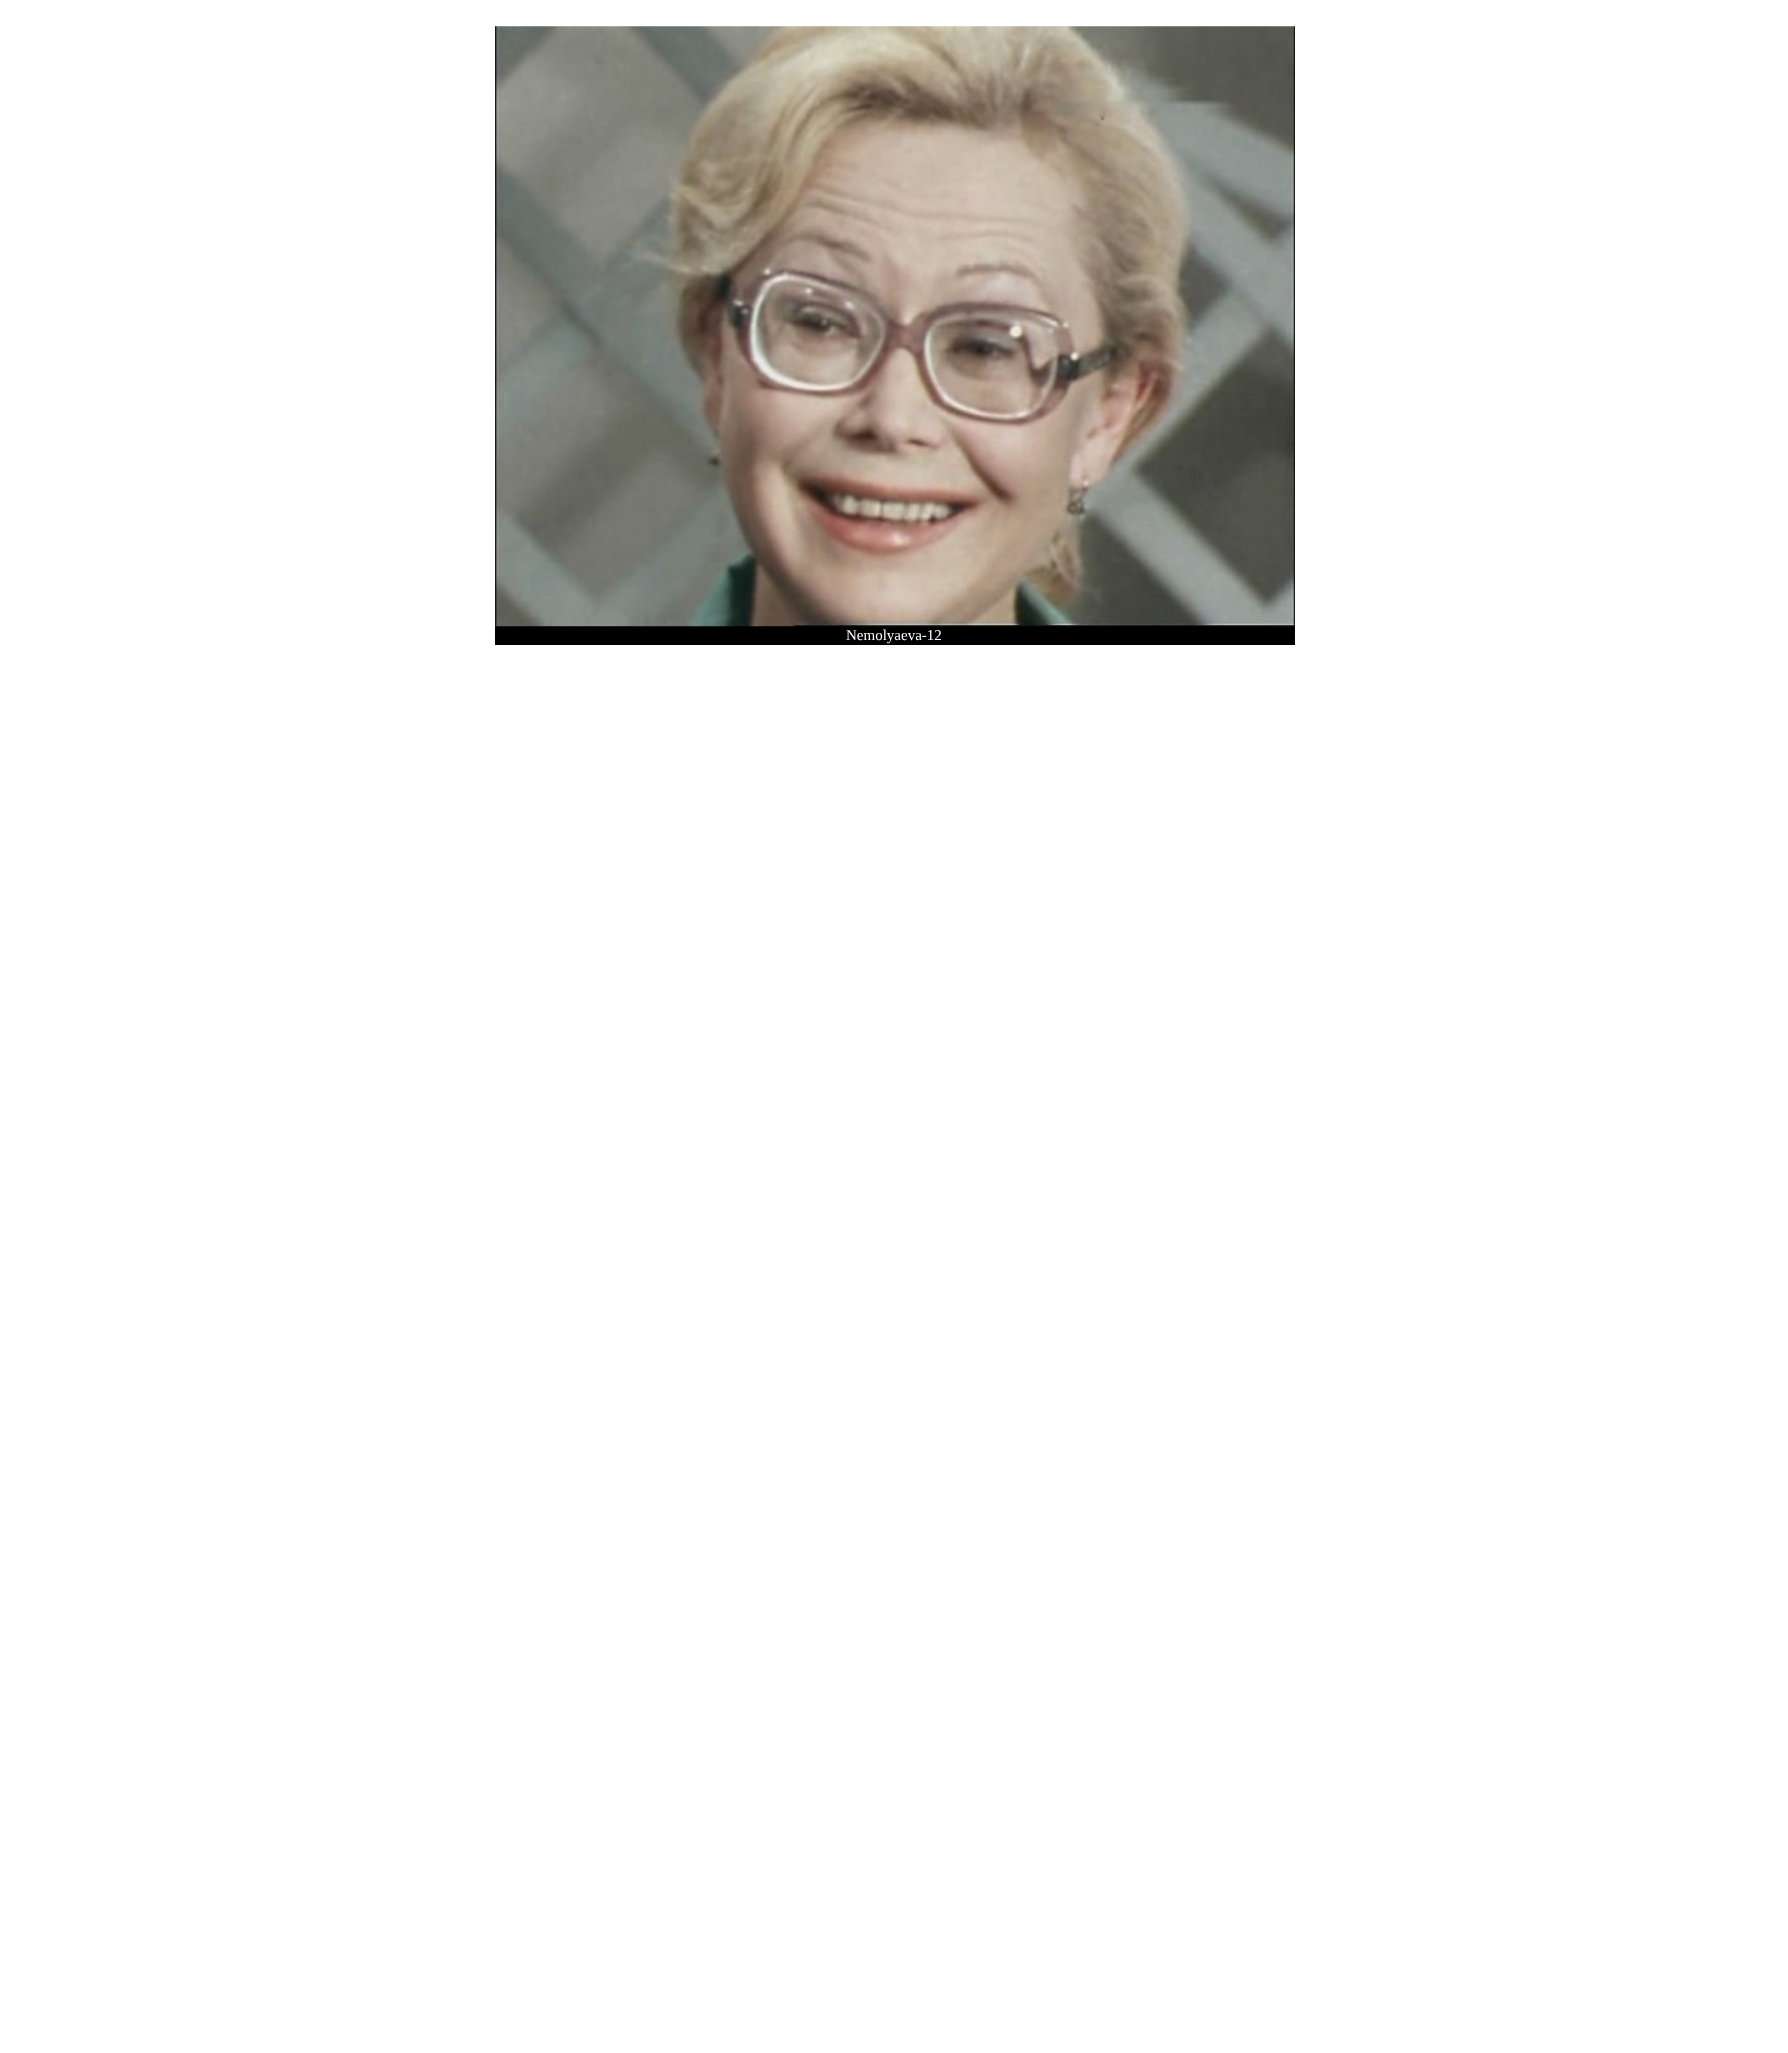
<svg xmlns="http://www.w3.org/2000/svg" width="1788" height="2053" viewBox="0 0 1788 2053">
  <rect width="100%" height="100%" fill="rgb(255,255,255)"/>
  <rect x="495" y="626" width="800" height="19" fill="rgb(0,0,0)"/>
  <image x="495" y="26" width="800" height="601" href="pic1.png"/>
  <text x="846" y="640" font-family="Liberation Serif" font-size="15" fill="rgb(255,255,255)">Nemolyaeva-12</text>
</svg>
